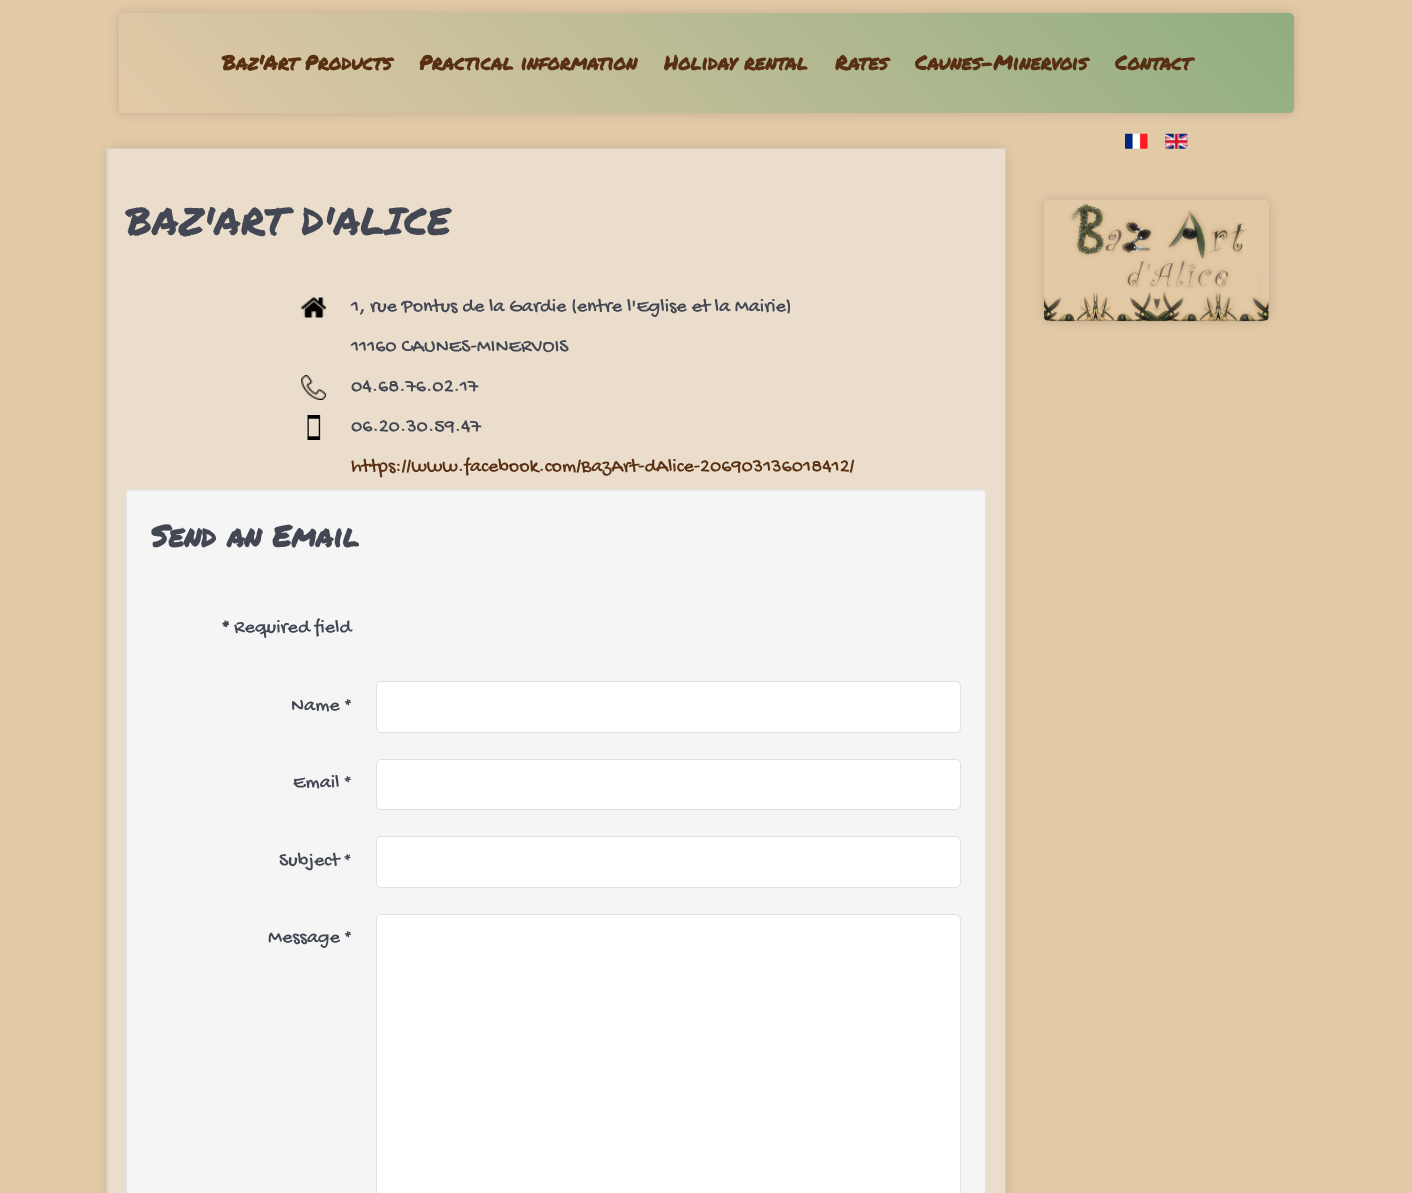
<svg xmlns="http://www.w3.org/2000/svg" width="1412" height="1193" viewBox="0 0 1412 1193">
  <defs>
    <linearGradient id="g1" gradientUnits="userSpaceOnUse" x1="388" y1="381" x2="1025" y2="-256"><stop offset="0" stop-color="rgb(227,202,167)"/><stop offset="1" stop-color="rgb(145,173,130)"/></linearGradient>
    <clipPath id="clip1"><path d="M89 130H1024V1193H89ZM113 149H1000C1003 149 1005 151 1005 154V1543C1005 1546 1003 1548 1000 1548H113C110 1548 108 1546 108 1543V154C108 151 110 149 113 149Z" clip-rule="evenodd"/></clipPath>
    <clipPath id="clip2"><path d="M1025 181H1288V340H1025ZM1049 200H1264C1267 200 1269 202 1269 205V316C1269 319 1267 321 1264 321H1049C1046 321 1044 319 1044 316V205C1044 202 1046 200 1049 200Z" clip-rule="evenodd"/></clipPath>
  </defs>
  <rect width="100%" height="100%" fill="rgb(227,202,167)"/>
  <rect x="119" y="13" width="1175" height="100" rx="5" fill="rgba(0,0,0,0.15)" filter="blur(6px)"/>
  <rect x="119" y="13" width="1175" height="100" rx="5" fill="url(#g1)"/>
  <g font-family="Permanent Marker" font-size="20" font-weight="bold" fill="rgb(88,47,17)">
    <text x="222" y="70">Baz'Art Products</text>
    <text x="419" y="70">Practical information</text>
    <text x="664" y="70">Holiday rental</text>
    <text x="835" y="70">Rates</text>
    <text x="915" y="70">Caunes-Minervois</text>
    <text x="1115" y="70">Contact</text>
  </g>
  <rect x="106" y="148" width="900" height="1045" fill="rgb(234,221,203)"/>
  <g clip-path="url(#clip1)">
    <rect x="108" y="149" width="897" height="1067" rx="5" fill="rgba(0,0,0,0.15)" filter="blur(6px)"/>
  </g>
  <text x="126" y="235" font-family="Permanent Marker" font-size="38" fill="rgb(66,71,83)">BAZ'ART D'ALICE</text>
  <image x="301" y="297" width="26" height="21" href="pic1.png"/>
  <g font-family="Gochi Hand" font-size="20" fill="rgb(66,71,83)">
    <text x="351" y="311">1, rue Pontus de la Gardie (entre l'Eglise et la Mairie)</text>
    <text x="351" y="351">11160 CAUNES-MINERVOIS</text>
  </g>
  <image x="301" y="375" width="26" height="25" href="pic2.png"/>
  <text x="351" y="391" font-family="Gochi Hand" font-size="20" fill="rgb(66,71,83)">04.68.76.02.17</text>
  <image x="307" y="415" width="14" height="25" href="pic3.png"/>
  <text x="351" y="431" font-family="Gochi Hand" font-size="20" fill="rgb(66,71,83)">06.20.30.59.47</text>
  <text x="351" y="471" font-family="Gochi Hand" font-size="20" fill="rgb(88,47,17)">https://www.facebook.com/BazArt-dAlice-206903136018412/</text>
  <rect x="126" y="489" width="860" height="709" rx="5" fill="rgb(245,245,245)"/>
  <path d="M131 491H981C983 491 985 493 985 495C985 492 984 490 981 490H132C129 490 128 492 128 495C128 493 129 491 131 491Z" fill="rgb(233,233,233)"/>
  <rect x="126.5" y="489.5" width="859" height="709" rx="4.5" fill="none" stroke="rgb(227,227,227)"/>
  <text x="151" y="547" font-family="Permanent Marker" font-size="30" font-weight="bold" fill="rgb(66,71,83)">Send an Email</text>
  <text x="222" y="632" font-family="Gochi Hand" font-size="20" font-weight="bold" fill="rgb(66,71,83)">*</text>
  <g font-family="Gochi Hand" font-size="20" fill="rgb(66,71,83)">
    <text x="234" y="632">Required field</text>
    <text x="291" y="710">Name *</text>
  </g>
  <rect x="376.5" y="681.5" width="584" height="51" rx="4.5" fill="rgb(255,255,255)" stroke="rgb(224,224,229)"/>
  <text x="293" y="787" font-family="Gochi Hand" font-size="20" fill="rgb(66,71,83)">Email *</text>
  <rect x="376.5" y="759.5" width="584" height="50" rx="4.5" fill="rgb(255,255,255)" stroke="rgb(224,224,229)"/>
  <text x="279" y="865" font-family="Gochi Hand" font-size="20" fill="rgb(66,71,83)">Subject *</text>
  <rect x="376.5" y="836.5" width="584" height="51" rx="4.5" fill="rgb(255,255,255)" stroke="rgb(224,224,229)"/>
  <text x="268" y="942" font-family="Gochi Hand" font-size="20" fill="rgb(66,71,83)">Message *</text>
  <rect x="376.5" y="914.5" width="584" height="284" rx="4.5" fill="rgb(255,255,255)" stroke="rgb(224,224,229)"/>
  <image x="1125" y="133" width="23" height="16" href="pic4.png"/>
  <image x="1165" y="133" width="23" height="16" href="pic5.png"/>
  <g clip-path="url(#clip2)">
    <rect x="1044" y="200" width="225" height="121" rx="5" fill="rgba(0,0,0,0.15)" filter="blur(6px)"/>
  </g>
  <image x="1043" y="203" width="226" height="119" href="pic6.png"/>
</svg>
